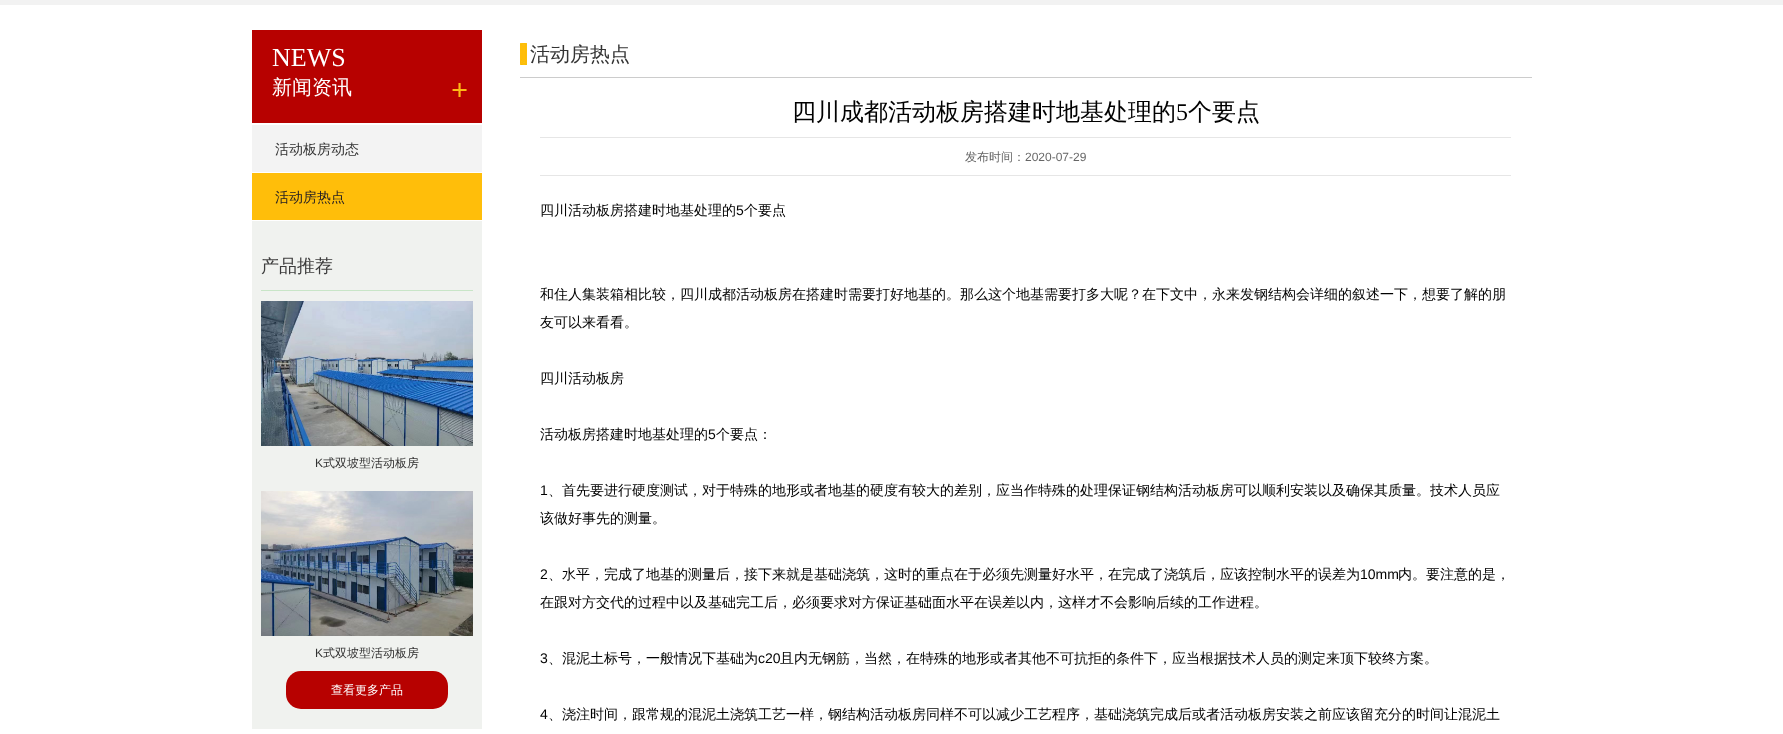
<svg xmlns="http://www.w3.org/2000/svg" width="1783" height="734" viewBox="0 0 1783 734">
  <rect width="100%" height="100%" fill="rgb(242,242,242)"/>
  <rect x="0" y="5" width="1783" height="729" fill="rgb(255,255,255)"/>
  <rect x="252" y="30" width="230" height="93" fill="rgb(183,1,0)"/>
  <text x="272" y="66" font-family="Liberation Serif" font-size="26" fill="rgb(255,255,255)">NEWS</text>
  <text x="272" y="94" font-family="WenQuanYi Zen Hei" font-size="20" font-weight="500" fill="rgb(255,255,255)">新闻资讯</text>
  <text x="451" y="100" font-family="Liberation Serif" font-size="30" font-weight="bold" fill="rgb(253,185,22)">+</text>
  <rect x="252" y="125" width="230" height="47" fill="rgb(243,243,243)"/>
  <text x="275" y="154" font-family="WenQuanYi Zen Hei" font-size="14" font-weight="500" fill="rgb(51,51,51)">活动板房动态</text>
  <rect x="252" y="173" width="230" height="47" fill="rgb(255,190,10)"/>
  <text x="275" y="202" font-family="WenQuanYi Zen Hei" font-size="14" font-weight="500" fill="rgb(35,30,36)">活动房热点</text>
  <rect x="252" y="221" width="230" height="508" fill="rgb(240,242,239)"/>
  <rect x="261" y="290" width="212" height="1" fill="rgb(200,229,199)"/>
  <text x="261" y="272" font-family="WenQuanYi Zen Hei" font-size="18" font-weight="500" fill="rgb(60,60,60)">产品推荐</text>
  <image x="261" y="301" width="212" height="145" href="pic1.png"/>
  <text x="315" y="467" font-family="Liberation Sans" font-size="12" fill="rgb(51,51,51)">K</text>
  <text x="323" y="467" font-family="WenQuanYi Zen Hei" font-size="12" font-weight="500" fill="rgb(51,51,51)">式双坡型活动板房</text>
  <image x="261" y="491" width="212" height="145" href="pic2.png"/>
  <text x="315" y="657" font-family="Liberation Sans" font-size="12" fill="rgb(51,51,51)">K</text>
  <text x="323" y="657" font-family="WenQuanYi Zen Hei" font-size="12" font-weight="500" fill="rgb(51,51,51)">式双坡型活动板房</text>
  <rect x="286" y="671" width="162" height="38" rx="15" fill="rgb(183,1,0)"/>
  <text x="331" y="694" font-family="WenQuanYi Zen Hei" font-size="12" font-weight="500" fill="rgb(255,255,255)">查看更多产品</text>
  <rect x="520" y="77" width="1012" height="1" fill="rgb(204,204,204)"/>
  <image x="520" y="43" width="7" height="22" href="pic3.png"/>
  <text x="530" y="61" font-family="WenQuanYi Zen Hei" font-size="20" font-weight="500" fill="rgb(51,51,51)">活动房热点</text>
  <text x="792" y="120" font-family="WenQuanYi Zen Hei" font-size="24" font-weight="500" fill="rgb(0,0,0)">四川成都活动板房搭建时地基处理的</text>
  <text x="1176" y="120" font-family="Liberation Serif" font-size="24" fill="rgb(0,0,0)">5</text>
  <text x="1188" y="120" font-family="WenQuanYi Zen Hei" font-size="24" font-weight="500" fill="rgb(0,0,0)">个要点</text>
  <rect x="540" y="137" width="971" height="1" fill="rgb(230,230,230)"/>
  <rect x="540" y="175" width="971" height="1" fill="rgb(230,230,230)"/>
  <text x="965" y="161" font-family="WenQuanYi Zen Hei" font-size="12" font-weight="500" fill="rgb(102,102,102)">发布时间：</text>
  <text x="1025" y="161" font-family="Liberation Sans" font-size="12" fill="rgb(102,102,102)">2020-07-29</text>
  <text x="540" y="215" font-family="WenQuanYi Zen Hei" font-size="14" font-weight="500" fill="rgb(0,0,0)">四川活动板房搭建时地基处理的</text>
  <text x="736" y="215" font-family="Liberation Sans" font-size="14" fill="rgb(0,0,0)">5</text>
  <g font-family="WenQuanYi Zen Hei" font-size="14" font-weight="500" fill="rgb(0,0,0)">
    <text x="744" y="215">个要点</text>
    <text x="540" y="299">和住人集装箱相比较，四川成都活动板房在搭建时需要打好地基的。那么这个地基需要打多大呢？在下文中，永来发钢结构会详细的叙述一下，想要了解的朋</text>
    <text x="540" y="327">友可以来看看。</text>
    <text x="540" y="383">四川活动板房</text>
    <text x="540" y="439">活动板房搭建时地基处理的</text>
  </g>
  <text x="708" y="439" font-family="Liberation Sans" font-size="14" fill="rgb(0,0,0)">5</text>
  <text x="716" y="439" font-family="WenQuanYi Zen Hei" font-size="14" font-weight="500" fill="rgb(0,0,0)">个要点：</text>
  <text x="540" y="495" font-family="Liberation Sans" font-size="14" fill="rgb(0,0,0)">1</text>
  <g font-family="WenQuanYi Zen Hei" font-size="14" font-weight="500" fill="rgb(0,0,0)">
    <text x="548" y="495">、首先要进行硬度测试，对于特殊的地形或者地基的硬度有较大的差别，应当作特殊的处理保证钢结构活动板房可以顺利安装以及确保其质量。技术人员应</text>
    <text x="540" y="523">该做好事先的测量。</text>
  </g>
  <text x="540" y="579" font-family="Liberation Sans" font-size="14" fill="rgb(0,0,0)">2</text>
  <text x="548" y="579" font-family="WenQuanYi Zen Hei" font-size="14" font-weight="500" fill="rgb(0,0,0)">、水平，完成了地基的测量后，接下来就是基础浇筑，这时的重点在于必须先测量好水平，在完成了浇筑后，应该控制水平的误差为</text>
  <text x="1360" y="579" font-family="Liberation Sans" font-size="14" fill="rgb(0,0,0)">10mm</text>
  <g font-family="WenQuanYi Zen Hei" font-size="14" font-weight="500" fill="rgb(0,0,0)">
    <text x="1398" y="579">内。要注意的是，</text>
    <text x="540" y="607">在跟对方交代的过程中以及基础完工后，必须要求对方保证基础面水平在误差以内，这样才不会影响后续的工作进程。</text>
  </g>
  <text x="540" y="663" font-family="Liberation Sans" font-size="14" fill="rgb(0,0,0)">3</text>
  <text x="548" y="663" font-family="WenQuanYi Zen Hei" font-size="14" font-weight="500" fill="rgb(0,0,0)">、混泥土标号，一般情况下基础为</text>
  <text x="758" y="663" font-family="Liberation Sans" font-size="14" fill="rgb(0,0,0)">c20</text>
  <text x="780" y="663" font-family="WenQuanYi Zen Hei" font-size="14" font-weight="500" fill="rgb(0,0,0)">且内无钢筋，当然，在特殊的地形或者其他不可抗拒的条件下，应当根据技术人员的测定来顶下较终方案。</text>
  <text x="540" y="719" font-family="Liberation Sans" font-size="14" fill="rgb(0,0,0)">4</text>
  <text x="548" y="719" font-family="WenQuanYi Zen Hei" font-size="14" font-weight="500" fill="rgb(0,0,0)">、浇注时间，跟常规的混泥土浇筑工艺一样，钢结构活动板房同样不可以减少工艺程序，基础浇筑完成后或者活动板房安装之前应该留充分的时间让混泥土</text>
</svg>
